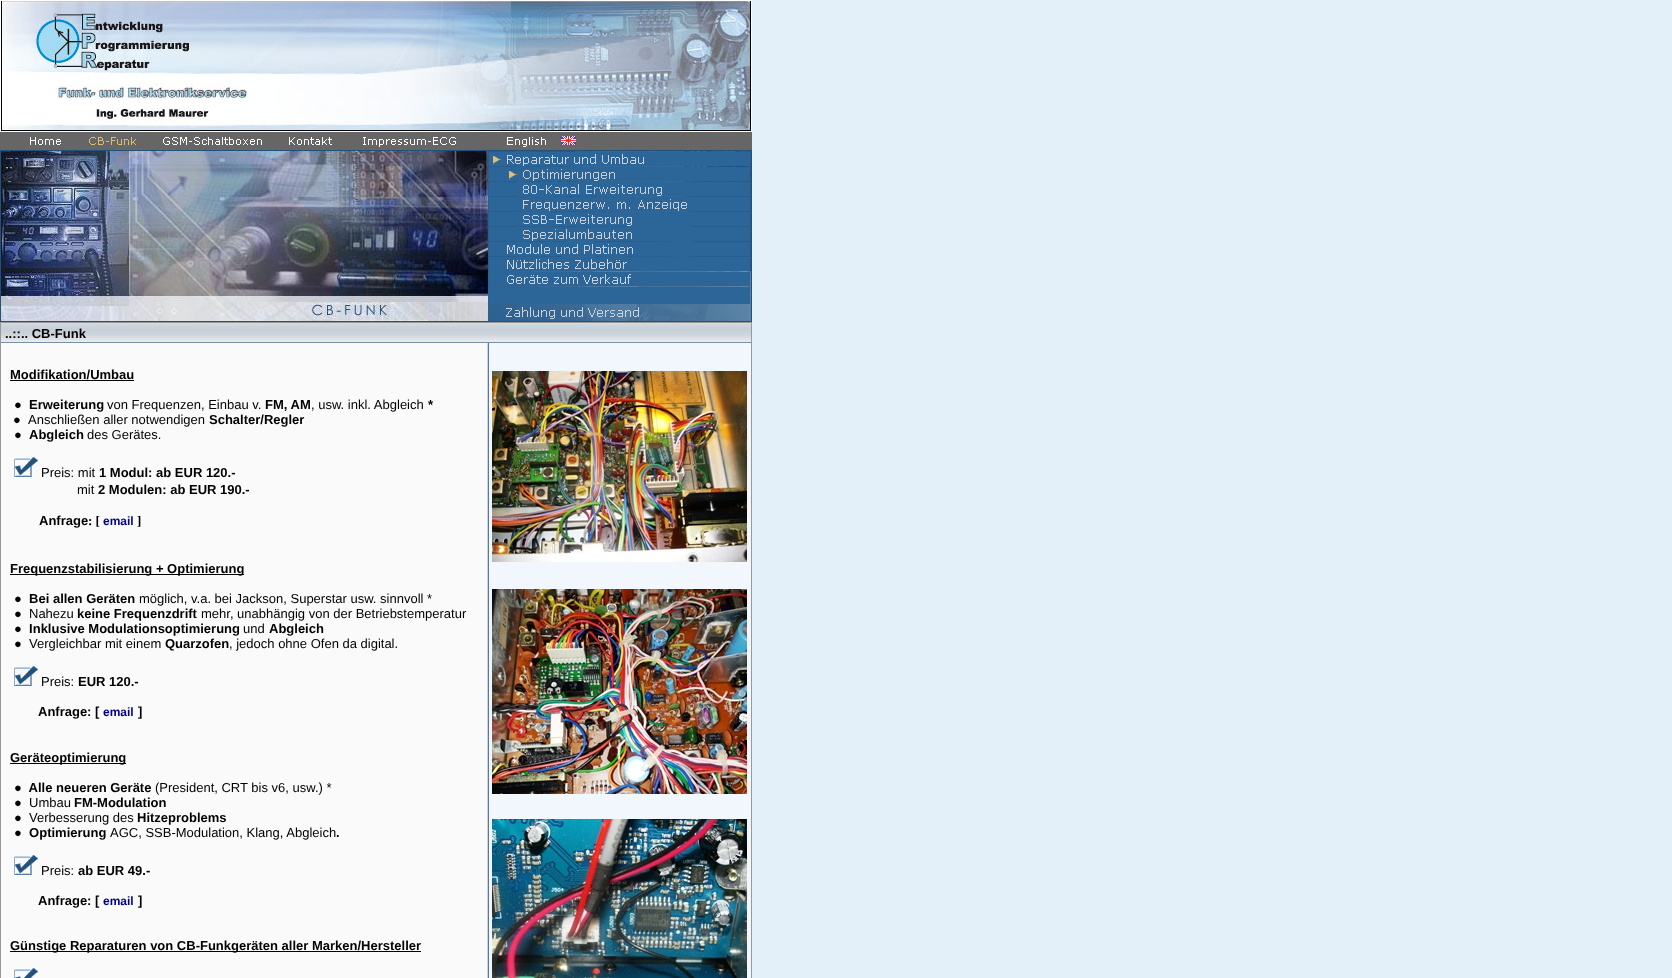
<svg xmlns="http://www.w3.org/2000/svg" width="1672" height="978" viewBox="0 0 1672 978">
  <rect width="100%" height="100%" fill="rgb(255,255,255)"/>
  <image x="1" y="1" width="249" height="74" href="pic1.png"/>
  <image x="250" y="1" width="277" height="74" href="pic2.png"/>
  <image x="527" y="1" width="224" height="74" href="pic3.png"/>
  <image x="1" y="75" width="249" height="56" href="pic4.png"/>
  <image x="250" y="75" width="277" height="56" href="pic5.png"/>
  <image x="527" y="75" width="224" height="56" href="pic6.png"/>
  <rect x="752" y="0" width="920" height="978" fill="rgb(227,239,249)"/>
  <rect x="0" y="132" width="752" height="18" fill="rgb(102,102,102)"/>
  <image x="30" y="137" width="31" height="8" href="pic7.png"/>
  <image x="89" y="137" width="47" height="8" href="pic8.png"/>
  <image x="163" y="137" width="99" height="8" href="pic9.png"/>
  <image x="289" y="137" width="43" height="8" href="pic10.png"/>
  <image x="363" y="137" width="93" height="10" href="pic11.png"/>
  <image x="507" y="136" width="69" height="11" href="pic12.png"/>
  <rect x="0" y="150" width="752" height="172" fill="rgb(35,81,124)"/>
  <image x="1" y="151" width="487" height="170" href="pic13.png"/>
  <image x="488" y="151" width="263" height="170" href="pic14.png"/>
  <rect x="489" y="152" width="261" height="14" fill="rgb(44,101,152)"/>
  <image x="493" y="154" width="151" height="12" href="pic15.png"/>
  <rect x="489" y="167" width="261" height="14" fill="rgb(44,101,152)"/>
  <image x="509" y="169" width="106" height="12" href="pic16.png"/>
  <rect x="489" y="182" width="261" height="14" fill="rgb(44,101,152)"/>
  <image x="523" y="184" width="139" height="12" href="pic17.png"/>
  <rect x="489" y="197" width="261" height="14" fill="rgb(44,101,152)"/>
  <image x="523" y="199" width="164" height="12" href="pic18.png"/>
  <rect x="489" y="212" width="261" height="14" fill="rgb(44,101,152)"/>
  <image x="523" y="214" width="109" height="12" href="pic19.png"/>
  <rect x="489" y="227" width="261" height="14" fill="rgb(44,101,152)"/>
  <image x="523" y="229" width="109" height="12" href="pic20.png"/>
  <rect x="489" y="242" width="261" height="14" fill="rgb(44,101,152)"/>
  <image x="507" y="244" width="126" height="10" href="pic21.png"/>
  <rect x="489" y="257" width="261" height="14" fill="rgb(44,101,152)"/>
  <image x="507" y="259" width="120" height="10" href="pic22.png"/>
  <rect x="489" y="272" width="261" height="14" fill="rgb(44,101,152)"/>
  <image x="507" y="274" width="124" height="10" href="pic23.png"/>
  <rect x="489" y="287" width="261" height="17" fill="rgb(44,101,152)"/>
  <image x="506" y="307" width="133" height="12" href="pic24.png"/>
  <rect x="0" y="322" width="752" height="656" fill="rgb(153,153,153)"/>
  <image x="1" y="323" width="750" height="20" href="pic25.png"/>
  <text x="5" y="338" font-family="Liberation Sans" font-size="13" font-weight="bold" fill="rgb(0,0,0)">..::.. CB-Funk</text>
  <image x="1" y="343" width="750" height="635" href="pic26.png"/>
  <text x="10" y="379" font-family="Liberation Sans" font-size="13" font-weight="bold" fill="rgb(0,0,0)">Modifikation/Umbau</text>
  <rect x="10" y="380" width="124" height="1" fill="rgb(0,0,0)"/>
  <text x="14" y="409" font-family="Liberation Sans" font-size="13" fill="rgb(0,0,0)">●</text>
  <text x="29" y="409" font-family="Liberation Sans" font-size="13" font-weight="bold" fill="rgb(0,0,0)">Erweiterung</text>
  <text x="107" y="409" font-family="Liberation Sans" font-size="13" fill="rgb(0,0,0)">von Frequenzen, Einbau v.</text>
  <text x="265" y="409" font-family="Liberation Sans" font-size="13" font-weight="bold" fill="rgb(0,0,0)">FM, AM</text>
  <text x="311" y="409" font-family="Liberation Sans" font-size="13" fill="rgb(0,0,0)">, usw. inkl. Abgleich</text>
  <text x="428" y="409" font-family="Liberation Sans" font-size="13" font-weight="bold" fill="rgb(0,0,0)">*</text>
  <g font-family="Liberation Sans" font-size="13" fill="rgb(0,0,0)">
    <text x="13" y="424">●</text>
    <text x="28" y="424">Anschließen aller notwendigen</text>
  </g>
  <text x="209" y="424" font-family="Liberation Sans" font-size="13" font-weight="bold" fill="rgb(0,0,0)">Schalter/Regler</text>
  <text x="14" y="439" font-family="Liberation Sans" font-size="13" fill="rgb(0,0,0)">●</text>
  <text x="29" y="439" font-family="Liberation Sans" font-size="13" font-weight="bold" fill="rgb(0,0,0)">Abgleich</text>
  <text x="87" y="439" font-family="Liberation Sans" font-size="13" fill="rgb(0,0,0)">des Gerätes.</text>
  <image x="14" y="457" width="24" height="20" href="pic27.png"/>
  <text x="41" y="477" font-family="Liberation Sans" font-size="13" fill="rgb(0,0,0)">Preis: mit</text>
  <text x="99" y="477" font-family="Liberation Sans" font-size="13" font-weight="bold" fill="rgb(0,0,0)">1 Modul: ab EUR 120.-</text>
  <text x="77" y="494" font-family="Liberation Sans" font-size="13" fill="rgb(0,0,0)">mit</text>
  <g font-family="Liberation Sans" font-size="13" font-weight="bold" fill="rgb(0,0,0)">
    <text x="98" y="494">2 Modulen: ab EUR 190.-</text>
    <text x="39" y="525">Anfrage</text>
  </g>
  <text x="88" y="525" font-family="Liberation Serif" font-size="13" font-weight="bold" fill="rgb(0,0,0)">: [</text>
  <text x="103" y="525" font-family="Liberation Sans" font-size="12" font-weight="bold" fill="rgb(0,0,138)">email</text>
  <text x="137" y="525" font-family="Liberation Serif" font-size="13" font-weight="bold" fill="rgb(0,0,0)">]</text>
  <rect x="10" y="574" width="234" height="1" fill="rgb(0,0,0)"/>
  <g font-family="Liberation Sans" font-size="13" font-weight="bold" fill="rgb(0,0,0)">
    <text x="10" y="573">Frequenzstabilisierung + Optimierung</text>
    <text x="14" y="603" xml:space="preserve">●  Bei allen Geräten</text>
  </g>
  <text x="139" y="603" font-family="Liberation Sans" font-size="13" fill="rgb(0,0,0)">möglich, v.a. bei Jackson, Superstar usw. sinnvoll *</text>
  <text x="14" y="618" font-family="Liberation Sans" font-size="13" font-weight="bold" fill="rgb(0,0,0)">●</text>
  <text x="29" y="618" font-family="Liberation Sans" font-size="13" fill="rgb(0,0,0)">Nahezu</text>
  <text x="77" y="618" font-family="Liberation Sans" font-size="13" font-weight="bold" fill="rgb(0,0,0)">keine Frequenzdrift</text>
  <text x="201" y="618" font-family="Liberation Sans" font-size="13" fill="rgb(0,0,0)">mehr, unabhängig von der Betriebstemperatur</text>
  <text x="14" y="633" font-family="Liberation Sans" font-size="13" font-weight="bold" fill="rgb(0,0,0)" xml:space="preserve">●  Inklusive Modulationsoptimierung</text>
  <text x="243" y="633" font-family="Liberation Sans" font-size="13" fill="rgb(0,0,0)">und</text>
  <g font-family="Liberation Sans" font-size="13" font-weight="bold" fill="rgb(0,0,0)">
    <text x="269" y="633">Abgleich</text>
    <text x="14" y="648">●</text>
  </g>
  <text x="29" y="648" font-family="Liberation Sans" font-size="13" fill="rgb(0,0,0)">Vergleichbar mit einem</text>
  <text x="165" y="648" font-family="Liberation Sans" font-size="13" font-weight="bold" fill="rgb(0,0,0)">Quarzofen</text>
  <text x="229" y="648" font-family="Liberation Sans" font-size="13" fill="rgb(0,0,0)">, jedoch ohne Ofen da digital.</text>
  <image x="14" y="666" width="24" height="20" href="pic27.png"/>
  <text x="41" y="686" font-family="Liberation Sans" font-size="13" fill="rgb(0,0,0)">Preis:</text>
  <g font-family="Liberation Sans" font-size="13" font-weight="bold" fill="rgb(0,0,0)">
    <text x="78" y="686">EUR 120.-</text>
    <text x="38" y="716">Anfrage: [</text>
  </g>
  <text x="103" y="716" font-family="Liberation Sans" font-size="12" font-weight="bold" fill="rgb(0,0,138)">email</text>
  <text x="138" y="716" font-family="Liberation Sans" font-size="13" font-weight="bold" fill="rgb(0,0,0)">]</text>
  <rect x="10" y="763" width="116" height="1" fill="rgb(0,0,0)"/>
  <g font-family="Liberation Sans" font-size="13" font-weight="bold" fill="rgb(0,0,0)">
    <text x="10" y="762">Geräteoptimierung</text>
    <text x="14" y="792" xml:space="preserve">●  Alle neueren Geräte</text>
  </g>
  <text x="155" y="792" font-family="Liberation Sans" font-size="13" fill="rgb(0,0,0)">(President, CRT bis v6, usw.) *</text>
  <text x="14" y="807" font-family="Liberation Sans" font-size="13" font-weight="bold" fill="rgb(0,0,0)">●</text>
  <text x="29" y="807" font-family="Liberation Sans" font-size="13" fill="rgb(0,0,0)">Umbau</text>
  <g font-family="Liberation Sans" font-size="13" font-weight="bold" fill="rgb(0,0,0)">
    <text x="74" y="807">FM-Modulation</text>
    <text x="14" y="822">●</text>
  </g>
  <text x="29" y="822" font-family="Liberation Sans" font-size="13" fill="rgb(0,0,0)">Verbesserung des</text>
  <g font-family="Liberation Sans" font-size="13" font-weight="bold" fill="rgb(0,0,0)">
    <text x="137" y="822">Hitzeproblems</text>
    <text x="14" y="837" xml:space="preserve">●  Optimierung</text>
  </g>
  <text x="110" y="837" font-family="Liberation Sans" font-size="13" fill="rgb(0,0,0)">AGC, SSB-Modulation, Klang, Abgleich</text>
  <text x="336" y="837" font-family="Liberation Sans" font-size="13" font-weight="bold" fill="rgb(0,0,0)">.</text>
  <image x="14" y="855" width="24" height="20" href="pic27.png"/>
  <text x="41" y="875" font-family="Liberation Sans" font-size="13" fill="rgb(0,0,0)">Preis:</text>
  <g font-family="Liberation Sans" font-size="13" font-weight="bold" fill="rgb(0,0,0)">
    <text x="78" y="875">ab EUR 49.-</text>
    <text x="38" y="905">Anfrage: [</text>
  </g>
  <text x="103" y="905" font-family="Liberation Sans" font-size="12" font-weight="bold" fill="rgb(0,0,138)">email</text>
  <text x="138" y="905" font-family="Liberation Sans" font-size="13" font-weight="bold" fill="rgb(0,0,0)">]</text>
  <rect x="10" y="951" width="411" height="1" fill="rgb(0,0,0)"/>
  <text x="10" y="950" font-family="Liberation Sans" font-size="13" font-weight="bold" fill="rgb(0,0,0)">Günstige Reparaturen von CB-Funkgeräten aller Marken/Hersteller</text>
  <image x="14" y="968" width="24" height="10" href="pic28.png"/>
  <image x="492" y="371" width="255" height="191" href="pic29.png"/>
  <image x="492" y="589" width="255" height="205" href="pic30.png"/>
  <image x="492" y="819" width="255" height="159" href="pic31.png"/>
</svg>
